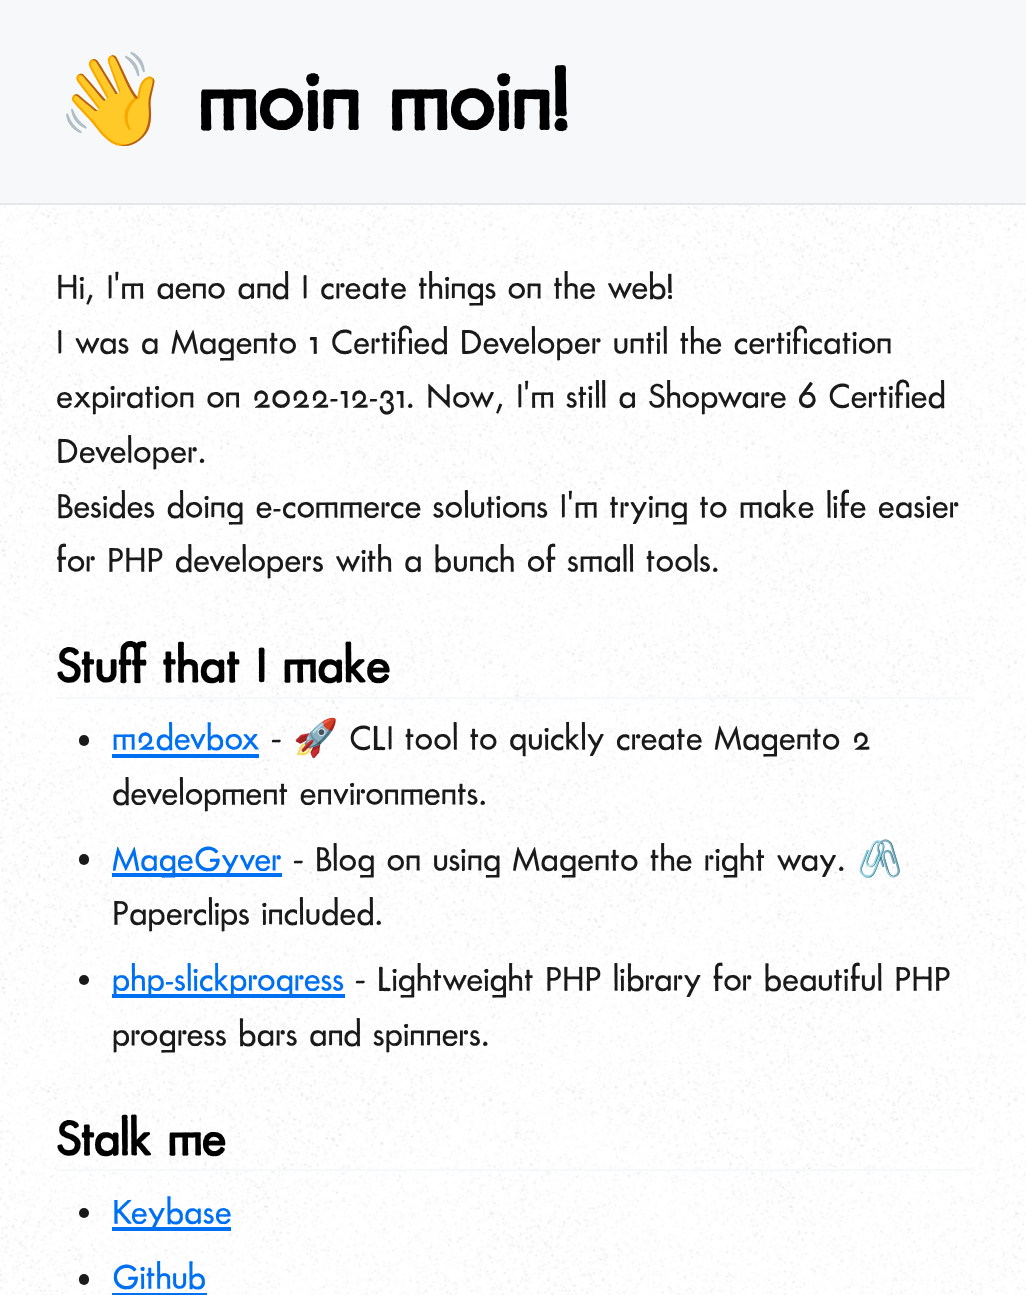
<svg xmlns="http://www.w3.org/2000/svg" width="1026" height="1295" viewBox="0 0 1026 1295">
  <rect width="100%" height="100%" fill="rgb(255,255,255)"/>
  <image x="0" y="205" width="1026" height="1090" href="pic1.png"/>
  <rect x="0" y="0" width="1026" height="203" fill="rgb(246,248,250)"/>
  <rect x="0" y="203" width="1026" height="2" fill="rgb(229,231,235)"/>
  <text x="56" y="131" font-family="Noto Color Emoji" font-size="91" font-weight="bold" fill="rgb(0,0,0)">👋</text>
  <text x="197" y="131" font-family="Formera" font-size="91" font-weight="bold" fill="rgb(0,0,0)">moin moin!</text>
  <g font-family="Formera" font-size="36.4" fill="rgb(26,26,26)">
    <text>
      <tspan x="56" y="299">Hi, I'm aeno and I create things on the web!</tspan>
      <tspan x="56" y="354">I was a Magento 1 Certified Developer until the certification</tspan>
      <tspan x="56" y="408">expiration on 2022-12-31. Now, I'm still a Shopware 6 Certified</tspan>
      <tspan x="56" y="463">Developer.</tspan>
      <tspan x="56" y="518">Besides doing e-commerce solutions I'm trying to make life easier</tspan>
      <tspan x="56" y="572">for PHP developers with a bunch of small tools.</tspan>
    </text>
  </g>
  <rect x="56" y="697" width="915" height="2" fill="rgb(246,248,250)"/>
  <text x="56" y="683" font-family="Formera" font-size="51.75" font-weight="bold" fill="rgb(0,0,0)">Stuff that I make</text>
  <rect x="79" y="735" width="10" height="11" rx="5" fill="rgb(26,26,26)"/>
  <text x="112" y="750" font-family="Formera" font-size="36.4" fill="rgb(0,112,243)">m2devbox</text>
  <rect x="112" y="754" width="147" height="4" fill="rgb(0,112,243)"/>
  <text x="271" y="750" font-family="Formera" font-size="36.4" fill="rgb(26,26,26)">–</text>
  <text x="293" y="750" font-family="Noto Color Emoji" font-size="36.4" fill="rgb(26,26,26)">🚀</text>
  <g font-family="Formera" font-size="36.4" fill="rgb(26,26,26)">
    <text x="349" y="750">CLI tool to quickly create Magento 2</text>
    <text x="112" y="805">development environments.</text>
  </g>
  <rect x="79" y="854" width="10" height="11" rx="5" fill="rgb(26,26,26)"/>
  <rect x="112" y="873" width="170" height="4" fill="rgb(0,112,243)"/>
  <text x="112" y="871" font-family="Formera" font-size="36.4" fill="rgb(0,112,243)">MageGyver</text>
  <text x="293" y="871" font-family="Formera" font-size="36.4" fill="rgb(26,26,26)">– Blog on using Magento the right way.</text>
  <text x="857" y="871" font-family="Noto Color Emoji" font-size="36.4" fill="rgb(26,26,26)">🖇️</text>
  <text x="112" y="925" font-family="Formera" font-size="36.4" fill="rgb(26,26,26)">Paperclips included.</text>
  <circle cx="84" cy="980" r="5" fill="rgb(26,26,26)"/>
  <rect x="112" y="994" width="233" height="4" fill="rgb(0,112,243)"/>
  <text x="112" y="991" font-family="Formera" font-size="36.4" fill="rgb(0,112,243)">php-slickprogress</text>
  <g font-family="Formera" font-size="36.4" fill="rgb(26,26,26)">
    <text x="355" y="991">– Lightweight PHP library for beautiful PHP</text>
    <text x="112" y="1046">progress bars and spinners.</text>
  </g>
  <rect x="56" y="1169" width="915" height="2" fill="rgb(246,248,250)"/>
  <text x="56" y="1156" font-family="Formera" font-size="51.75" font-weight="bold" fill="rgb(0,0,0)">Stalk me</text>
  <circle cx="84" cy="1213" r="5" fill="rgb(26,26,26)"/>
  <rect x="112" y="1227" width="119" height="4" fill="rgb(0,112,243)"/>
  <text x="112" y="1224" font-family="Formera" font-size="36.4" fill="rgb(0,112,243)">Keybase</text>
  <rect x="79" y="1274" width="10" height="11" rx="5" fill="rgb(26,26,26)"/>
  <text x="112" y="1289" font-family="Formera" font-size="36.4" fill="rgb(0,112,243)">Github</text>
  <rect x="112" y="1293" width="95" height="2" fill="rgb(0,112,243)"/>
</svg>
